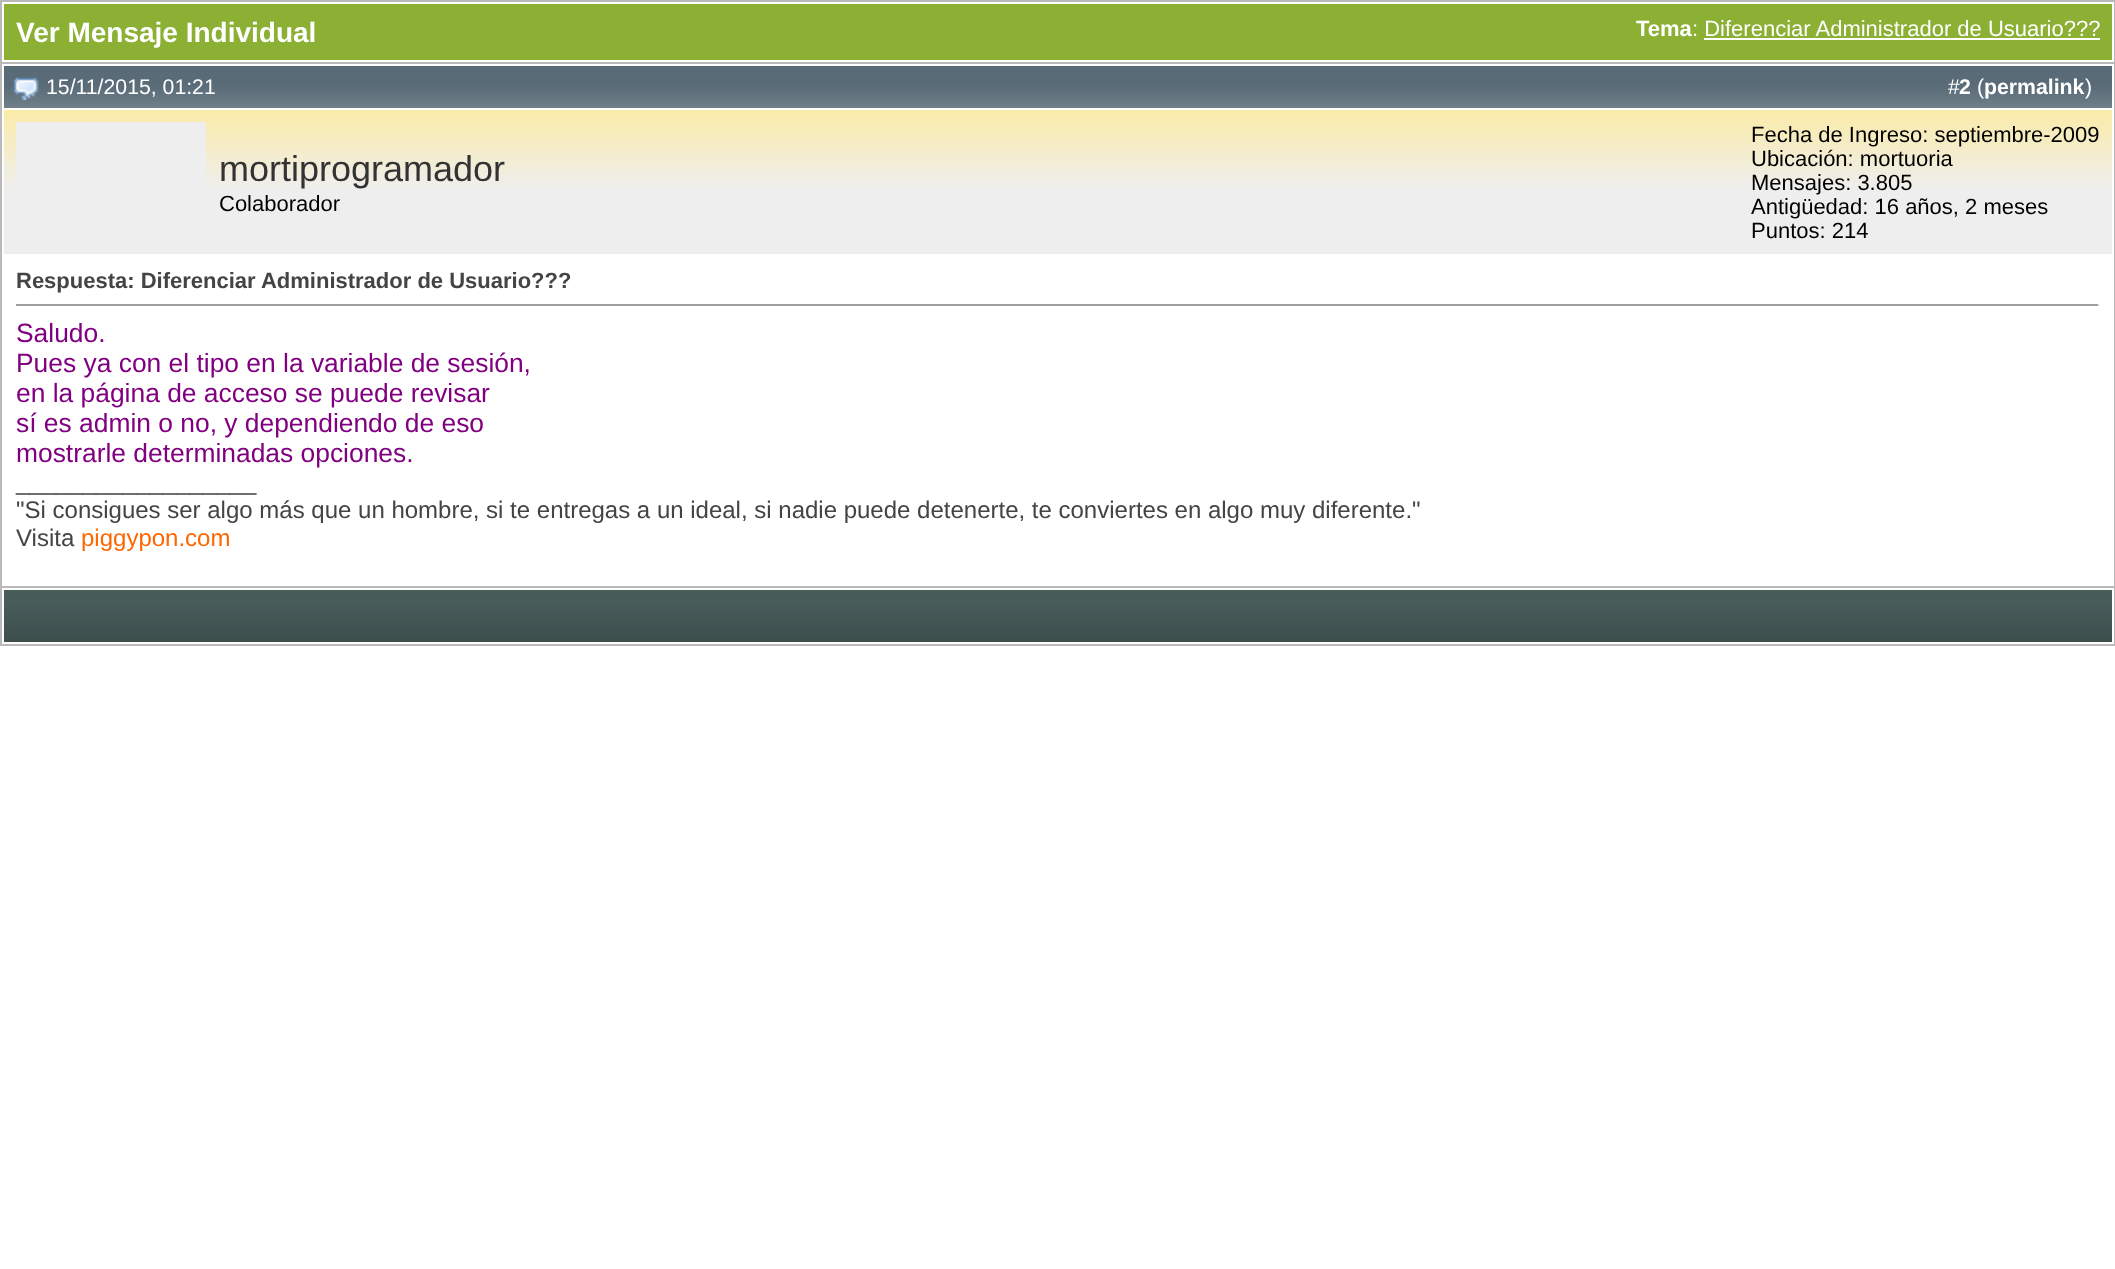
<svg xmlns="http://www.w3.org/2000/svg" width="2115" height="1269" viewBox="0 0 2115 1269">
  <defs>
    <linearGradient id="g1" gradientUnits="userSpaceOnUse" x1="4" y1="110" x2="4" y2="190"><stop offset="0" stop-color="rgb(251,235,168)"/><stop offset="1" stop-color="rgb(238,238,238)"/></linearGradient>
  </defs>
  <rect width="100%" height="100%" fill="rgb(255,255,255)"/>
  <rect x="0" y="0" width="2115" height="2" fill="rgb(185,185,185)"/>
  <rect x="2114" y="0" width="1" height="62" fill="rgb(185,185,185)"/>
  <rect x="0" y="0" width="2" height="62" fill="rgb(185,185,185)"/>
  <rect x="4" y="4" width="2108" height="56" fill="rgb(139,176,51)"/>
  <text x="16" y="42" font-family="Liberation Sans" font-size="28" font-weight="bold" fill="rgb(255,255,255)">Ver Mensaje Individual</text>
  <text x="1636" y="36" font-family="Liberation Sans" font-size="22" font-weight="bold" fill="rgb(255,255,255)">Tema</text>
  <text x="1692" y="36" font-family="Liberation Sans" font-size="22" fill="rgb(255,255,255)">: Diferenciar Administrador de Usuario???</text>
  <rect x="1704" y="38" width="396" height="2" fill="rgb(255,255,255)"/>
  <rect x="1" y="63" width="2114" height="524" fill="none" stroke="rgb(185,185,185)" stroke-width="2"/>
  <image x="4" y="66" width="2108" height="42" href="pic1.png"/>
  <image x="13" y="77" width="26" height="23" href="pic2.png"/>
  <g font-family="Liberation Sans" font-size="21.25" fill="rgb(255,255,255)">
    <text x="46" y="94">15/11/2015, 01:21</text>
    <text x="1948" y="94">#</text>
  </g>
  <text x="1959" y="94" font-family="Liberation Sans" font-size="21.25" font-weight="bold" fill="rgb(255,255,255)">2</text>
  <text x="1977" y="94" font-family="Liberation Sans" font-size="21.25" fill="rgb(255,255,255)">(</text>
  <text x="1984" y="94" font-family="Liberation Sans" font-size="21.25" font-weight="bold" fill="rgb(255,255,255)">permalink</text>
  <text x="2085" y="94" font-family="Liberation Sans" font-size="21.25" fill="rgb(255,255,255)">)</text>
  <rect x="4" y="110" width="2108" height="144" fill="url(#g1)"/>
  <rect x="16" y="122" width="190" height="65" fill="rgb(238,238,238)"/>
  <text x="219" y="181" font-family="Liberation Sans" font-size="36" fill="rgb(51,51,51)">mortiprogramador</text>
  <g font-family="Liberation Sans" font-size="22" fill="rgb(0,0,0)">
    <text x="219" y="211">Colaborador</text>
    <text>
      <tspan x="1751" y="142">Fecha de Ingreso: septiembre-2009</tspan>
      <tspan x="1751" y="166">Ubicación: mortuoria</tspan>
      <tspan x="1751" y="190">Mensajes: 3.805</tspan>
      <tspan x="1751" y="214">Antigüedad: 16 años, 2 meses</tspan>
      <tspan x="1751" y="238">Puntos: 214</tspan>
    </text>
  </g>
  <text x="16" y="288" font-family="Liberation Sans" font-size="22" font-weight="bold" fill="rgb(68,68,68)">Respuesta: Diferenciar Administrador de Usuario???</text>
  <rect x="16" y="304" width="2084" height="2" fill="rgb(159,159,159)"/>
  <rect x="2098" y="304" width="2" height="2" fill="rgb(238,238,238)"/>
  <g font-family="Liberation Sans" font-size="26.4" fill="rgb(128,0,128)">
    <text>
      <tspan x="16" y="342">Saludo.</tspan>
      <tspan x="16" y="372">Pues ya con el tipo en la variable de sesión,</tspan>
      <tspan x="16" y="402">en la página de acceso se puede revisar</tspan>
      <tspan x="16" y="432">sí es admin o no, y dependiendo de eso</tspan>
      <tspan x="16" y="462">mostrarle determinadas opciones.</tspan>
    </text>
  </g>
  <g font-family="Liberation Sans" font-size="24" fill="rgb(68,68,68)">
    <text>
      <tspan x="16" y="490">__________________</tspan>
      <tspan x="16" y="518">"Si consigues ser algo más que un hombre, si te entregas a un ideal, si nadie puede detenerte, te conviertes en algo muy diferente."</tspan>
      <tspan x="16" y="546">Visita</tspan>
    </text>
  </g>
  <text x="81" y="546" font-family="Liberation Sans" font-size="24" fill="rgb(255,102,0)">piggypon.com</text>
  <rect x="2114" y="588" width="1" height="58" fill="rgb(185,185,185)"/>
  <rect x="0" y="644" width="2115" height="2" fill="rgb(185,185,185)"/>
  <rect x="0" y="588" width="2" height="58" fill="rgb(185,185,185)"/>
  <image x="4" y="590" width="2108" height="52" href="pic3.png"/>
</svg>
